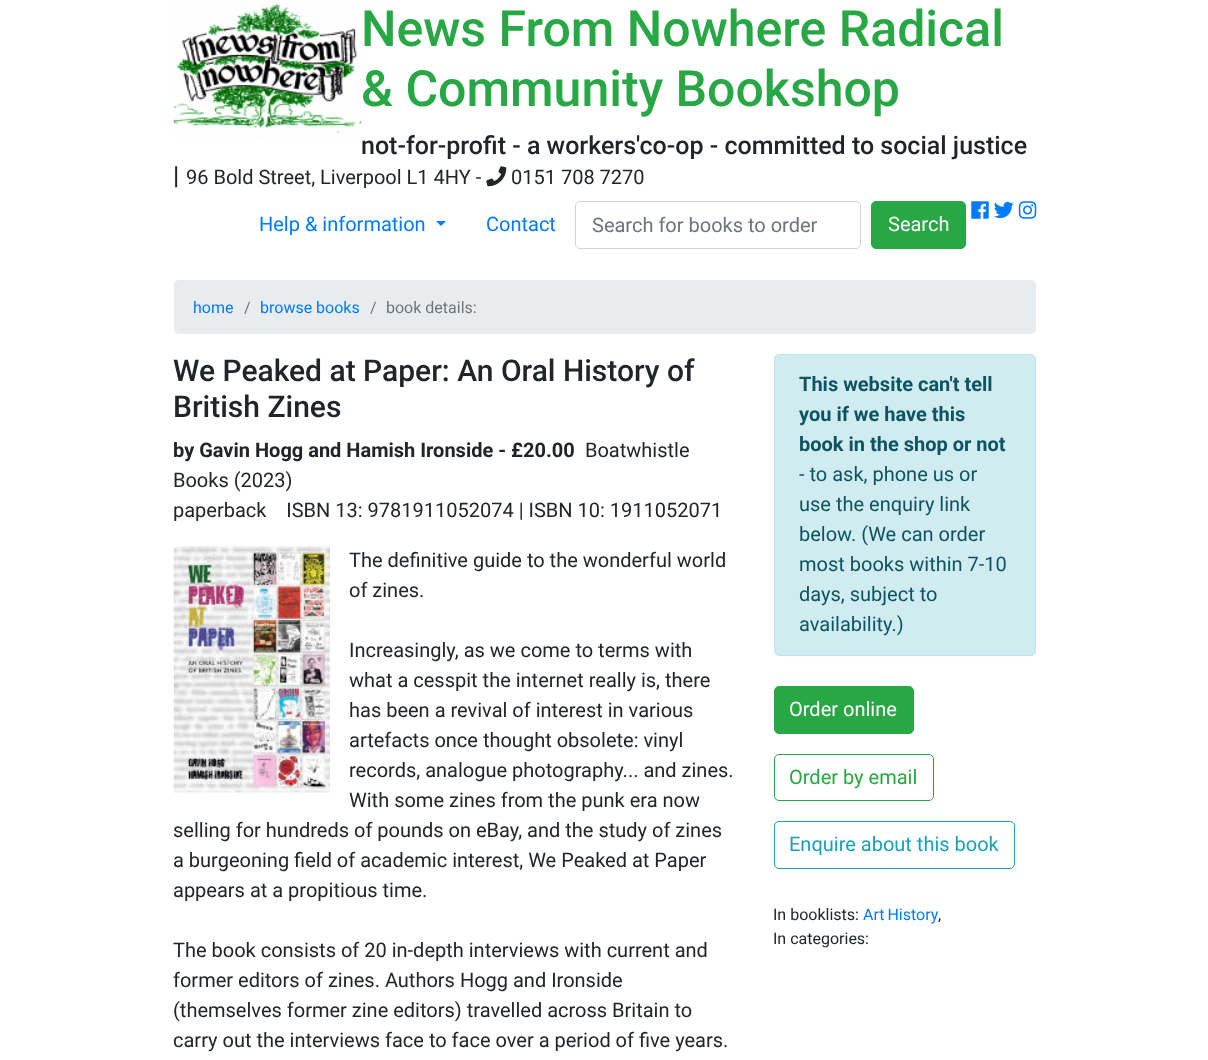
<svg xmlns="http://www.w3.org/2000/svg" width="1208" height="1060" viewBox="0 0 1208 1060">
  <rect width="100%" height="100%" fill="rgb(255,255,255)"/>
  <image x="173" y="0" width="189" height="140" href="pic1.png"/>
  <g font-family="Roboto" font-size="50" font-weight="500" fill="rgb(40,167,69)">
    <text>
      <tspan x="361" y="46">News From Nowhere Radical</tspan>
      <tspan x="361" y="106">&amp; Community Bookshop</tspan>
    </text>
  </g>
  <g font-family="Roboto" font-size="25" font-weight="500" fill="rgb(33,37,41)">
    <text x="361" y="154">not-for-profit - a workers'co-op - committed to social justice</text>
    <text x="173" y="184">|</text>
  </g>
  <text x="186" y="184" font-family="Roboto" font-size="20" fill="rgb(33,37,41)">96 Bold Street, Liverpool L1 4HY -</text>
  <image x="486" y="166" width="21" height="21" href="pic2.png"/>
  <text x="511" y="184" font-family="Roboto" font-size="20" fill="rgb(33,37,41)">0151 708 7270</text>
  <image x="971" y="201" width="18" height="18" href="pic3.png"/>
  <image x="993" y="201" width="21" height="18" href="pic4.png"/>
  <image x="1018" y="201" width="19" height="18" href="pic5.png"/>
  <text x="259" y="231" font-family="Roboto" font-size="20" fill="rgb(0,123,255)">Help &amp; information</text>
  <path d="M436 221H446L441 226Z" fill="rgb(0,123,255)"/>
  <text x="486" y="231" font-family="Roboto" font-size="20" fill="rgb(0,123,255)">Contact</text>
  <rect x="575.5" y="201.5" width="285" height="47" rx="4.5" fill="none" stroke="rgb(206,212,218)"/>
  <text x="592" y="232" font-family="Roboto" font-size="20" fill="rgb(108,117,125)">Search for books to order</text>
  <rect x="871.5" y="201.5" width="94" height="47" rx="4.5" fill="rgb(40,167,69)" stroke="rgb(40,167,69)"/>
  <text x="888" y="231" font-family="Roboto" font-size="20" fill="rgb(255,255,255)">Search</text>
  <rect x="174" y="280" width="862" height="54" rx="5" fill="rgb(233,236,239)"/>
  <text x="193" y="313" font-family="Roboto" font-size="16" fill="rgb(0,123,255)">home</text>
  <text x="244" y="313" font-family="Roboto" font-size="16" fill="rgb(108,117,125)">/</text>
  <text x="260" y="313" font-family="Roboto" font-size="16" fill="rgb(0,123,255)">browse books</text>
  <g font-family="Roboto" font-size="16" fill="rgb(108,117,125)">
    <text x="370" y="313">/</text>
    <text x="386" y="313">book details:</text>
  </g>
  <g font-family="Roboto" font-size="30" font-weight="500" fill="rgb(33,37,41)">
    <text>
      <tspan x="173" y="381">We Peaked at Paper: An Oral History of</tspan>
      <tspan x="173" y="417">British Zines</tspan>
    </text>
  </g>
  <text x="173" y="457" font-family="Roboto" font-size="20" font-weight="bold" fill="rgb(33,37,41)">by Gavin Hogg and Hamish Ironside - £20.00</text>
  <g font-family="Roboto" font-size="20" fill="rgb(33,37,41)">
    <text x="585" y="457">Boatwhistle</text>
    <text xml:space="preserve"><tspan x="173" y="487">Books (2023)</tspan><tspan x="173" y="517">paperback    ISBN 13: 9781911052074 | ISBN 10: 1911052071</tspan></text>
  </g>
  <image x="173" y="546" width="157" height="247" href="pic6.png"/>
  <g font-family="Roboto" font-size="20" fill="rgb(33,37,41)">
    <text>
      <tspan x="349" y="567">The definitive guide to the wonderful world</tspan>
      <tspan x="349" y="597">of zines.</tspan>
    </text>
    <text>
      <tspan x="349" y="657">Increasingly, as we come to terms with</tspan>
      <tspan x="349" y="687">what a cesspit the internet really is, there</tspan>
      <tspan x="349" y="717">has been a revival of interest in various</tspan>
      <tspan x="349" y="747">artefacts once thought obsolete: vinyl</tspan>
      <tspan x="349" y="777">records, analogue photography... and zines.</tspan>
      <tspan x="349" y="807">With some zines from the punk era now</tspan>
    </text>
    <text>
      <tspan x="173" y="837">selling for hundreds of pounds on eBay, and the study of zines</tspan>
      <tspan x="173" y="867">a burgeoning field of academic interest, We Peaked at Paper</tspan>
      <tspan x="173" y="897">appears at a propitious time.</tspan>
    </text>
    <text>
      <tspan x="173" y="957">The book consists of 20 in-depth interviews with current and</tspan>
      <tspan x="173" y="987">former editors of zines. Authors Hogg and Ironside</tspan>
      <tspan x="173" y="1017">(themselves former zine editors) travelled across Britain to</tspan>
      <tspan x="173" y="1047">carry out the interviews face to face over a period of five years.</tspan>
    </text>
  </g>
  <rect x="774.5" y="354.5" width="261" height="301" rx="4.5" fill="rgb(209,236,241)" stroke="rgb(190,229,235)"/>
  <g font-family="Roboto" font-size="20" font-weight="bold" fill="rgb(12,84,96)">
    <text>
      <tspan x="799" y="391">This website can't tell</tspan>
      <tspan x="799" y="421">you if we have this</tspan>
      <tspan x="799" y="451">book in the shop or not</tspan>
    </text>
  </g>
  <g font-family="Roboto" font-size="20" fill="rgb(12,84,96)">
    <text>
      <tspan x="799" y="481">- to ask, phone us or</tspan>
      <tspan x="799" y="511">use the enquiry link</tspan>
      <tspan x="799" y="541">below. (We can order</tspan>
      <tspan x="799" y="571">most books within 7-10</tspan>
      <tspan x="799" y="601">days, subject to</tspan>
      <tspan x="799" y="631">availability.)</tspan>
    </text>
  </g>
  <rect x="774.5" y="686.5" width="139" height="47" rx="4.5" fill="rgb(40,167,69)" stroke="rgb(40,167,69)"/>
  <text x="789" y="716" font-family="Roboto" font-size="20" fill="rgb(255,255,255)">Order online</text>
  <rect x="774.5" y="754.5" width="159" height="46" rx="4.5" fill="none" stroke="rgb(40,167,69)"/>
  <text x="789" y="784" font-family="Roboto" font-size="20" fill="rgb(40,167,69)">Order by email</text>
  <rect x="774.5" y="821.5" width="240" height="47" rx="4.5" fill="none" stroke="rgb(23,162,184)"/>
  <text x="789" y="851" font-family="Roboto" font-size="20" fill="rgb(23,162,184)">Enquire about this book</text>
  <text x="773" y="920" font-family="Roboto" font-size="16" fill="rgb(33,37,41)">In booklists:</text>
  <text x="863" y="920" word-spacing="-1" font-family="Roboto" font-size="16" fill="rgb(0,123,255)">Art History</text>
  <g font-family="Roboto" font-size="16" fill="rgb(33,37,41)">
    <text x="938" y="920">,</text>
    <text x="773" y="944">In categories:</text>
  </g>
</svg>
